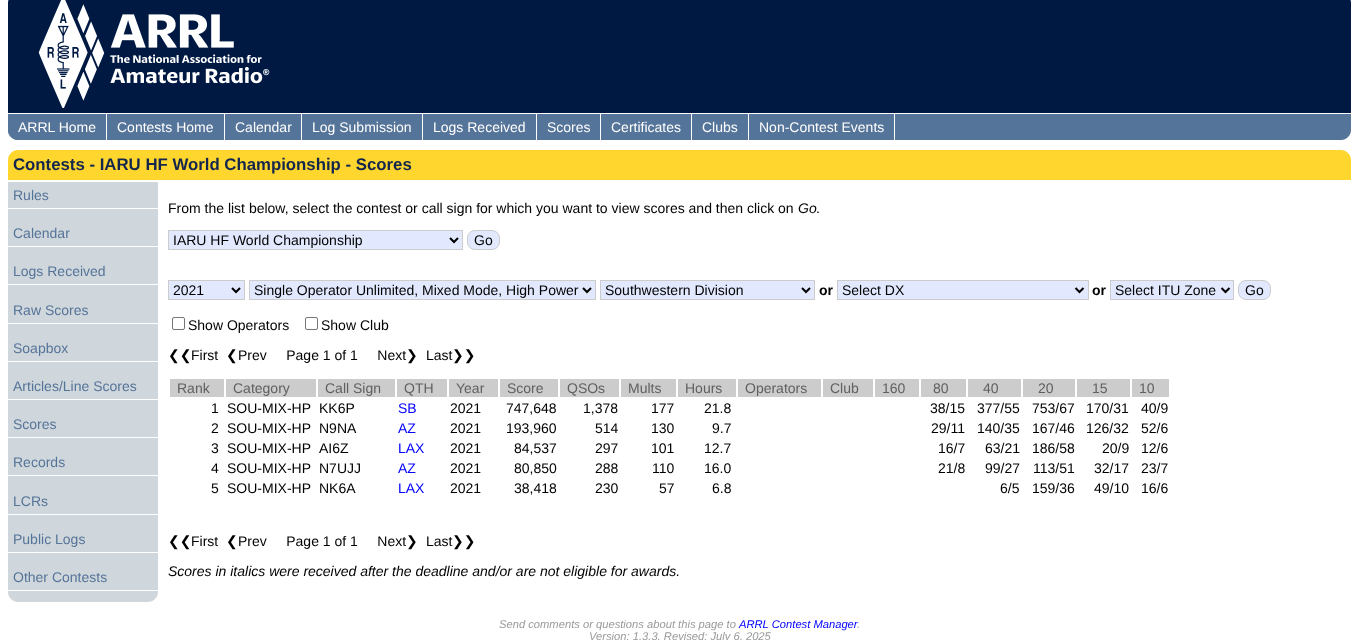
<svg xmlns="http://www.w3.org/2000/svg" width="1359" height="640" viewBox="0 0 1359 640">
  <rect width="100%" height="100%" fill="rgb(255,255,255)"/>
  <path d="M18-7H1341C1346.5-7 1351-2.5 1351 3V113H8V3C8-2.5 12.5-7 18-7Z" fill="rgb(0,25,67)"/>
  <image x="38" y="0" width="232" height="108" href="pic1.png"/>
  <path d="M8 114H1351V130C1351 135.5 1346.5 140 1341 140H18C12.5 140 8 135.5 8 130Z" fill="rgb(85,116,153)"/>
  <path d="M8 114H107V140H18C12.5 140 8 135.5 8 130Z" fill="rgb(85,116,153)"/>
  <rect x="106" y="114" width="1" height="26" fill="rgb(255,255,255)"/>
  <text x="18" y="132" font-family="Liberation Sans" font-size="14" fill="rgb(255,255,255)">ARRL Home</text>
  <rect x="224" y="114" width="1" height="26" fill="rgb(255,255,255)"/>
  <text x="117" y="132" font-family="Liberation Sans" font-size="14" fill="rgb(255,255,255)">Contests Home</text>
  <rect x="301" y="114" width="1" height="26" fill="rgb(255,255,255)"/>
  <text x="235" y="132" font-family="Liberation Sans" font-size="14" fill="rgb(255,255,255)">Calendar</text>
  <rect x="422" y="114" width="1" height="26" fill="rgb(255,255,255)"/>
  <text x="312" y="132" font-family="Liberation Sans" font-size="14" fill="rgb(255,255,255)">Log Submission</text>
  <rect x="536" y="114" width="1" height="26" fill="rgb(255,255,255)"/>
  <text x="433" y="132" font-family="Liberation Sans" font-size="14" fill="rgb(255,255,255)">Logs Received</text>
  <rect x="600" y="114" width="1" height="26" fill="rgb(255,255,255)"/>
  <text x="547" y="132" font-family="Liberation Sans" font-size="14" fill="rgb(255,255,255)">Scores</text>
  <rect x="691" y="114" width="1" height="26" fill="rgb(255,255,255)"/>
  <text x="611" y="132" font-family="Liberation Sans" font-size="14" fill="rgb(255,255,255)">Certificates</text>
  <rect x="748" y="114" width="1" height="26" fill="rgb(255,255,255)"/>
  <text x="702" y="132" font-family="Liberation Sans" font-size="14" fill="rgb(255,255,255)">Clubs</text>
  <rect x="894" y="114" width="1" height="26" fill="rgb(255,255,255)"/>
  <text x="759" y="132" font-family="Liberation Sans" font-size="14" fill="rgb(255,255,255)">Non-Contest Events</text>
  <path d="M18 150H1341C1346.5 150 1351 154.5 1351 160V180H8V160C8 154.5 12.5 150 18 150Z" fill="rgb(254,214,46)"/>
  <text x="13" y="170" font-family="Liberation Sans" font-size="16.8" font-weight="bold" fill="rgb(20,38,77)">Contests - IARU HF World Championship - Scores</text>
  <path d="M8 182H158V592C158 597.5 153.5 602 148 602H18C12.5 602 8 597.5 8 592Z" fill="rgb(208,215,220)"/>
  <rect x="8" y="208" width="150" height="1" fill="rgb(255,255,255)"/>
  <text x="13" y="200" font-family="Liberation Sans" font-size="14" fill="rgb(85,116,153)">Rules</text>
  <rect x="8" y="246" width="150" height="1" fill="rgb(255,255,255)"/>
  <text x="13" y="238" font-family="Liberation Sans" font-size="14" fill="rgb(85,116,153)">Calendar</text>
  <rect x="8" y="284" width="150" height="1" fill="rgb(255,255,255)"/>
  <text x="13" y="276" font-family="Liberation Sans" font-size="14" fill="rgb(85,116,153)">Logs Received</text>
  <rect x="8" y="323" width="150" height="1" fill="rgb(255,255,255)"/>
  <text x="13" y="315" font-family="Liberation Sans" font-size="14" fill="rgb(85,116,153)">Raw Scores</text>
  <rect x="8" y="361" width="150" height="1" fill="rgb(255,255,255)"/>
  <text x="13" y="353" font-family="Liberation Sans" font-size="14" fill="rgb(85,116,153)">Soapbox</text>
  <rect x="8" y="399" width="150" height="1" fill="rgb(255,255,255)"/>
  <text x="13" y="391" font-family="Liberation Sans" font-size="14" fill="rgb(85,116,153)">Articles/Line Scores</text>
  <rect x="8" y="437" width="150" height="1" fill="rgb(255,255,255)"/>
  <text x="13" y="429" font-family="Liberation Sans" font-size="14" fill="rgb(85,116,153)">Scores</text>
  <rect x="8" y="475" width="150" height="1" fill="rgb(255,255,255)"/>
  <text x="13" y="467" font-family="Liberation Sans" font-size="14" fill="rgb(85,116,153)">Records</text>
  <rect x="8" y="514" width="150" height="1" fill="rgb(255,255,255)"/>
  <text x="13" y="506" font-family="Liberation Sans" font-size="14" fill="rgb(85,116,153)">LCRs</text>
  <rect x="8" y="552" width="150" height="1" fill="rgb(255,255,255)"/>
  <text x="13" y="544" font-family="Liberation Sans" font-size="14" fill="rgb(85,116,153)">Public Logs</text>
  <rect x="8" y="590" width="150" height="1" fill="rgb(255,255,255)"/>
  <text x="13" y="582" font-family="Liberation Sans" font-size="14" fill="rgb(85,116,153)">Other Contests</text>
  <text x="168" y="213" font-family="Liberation Sans" font-size="14" fill="rgb(0,0,0)">From the list below, select the contest or call sign for which you want to view scores and then click on</text>
  <text x="798" y="213" font-family="Liberation Sans" font-size="14" font-style="italic" fill="rgb(0,0,0)">Go</text>
  <text x="816" y="213" font-family="Liberation Sans" font-size="14" fill="rgb(0,0,0)">.</text>
  <rect x="168.5" y="230.5" width="294" height="19" fill="rgb(226,233,255)" stroke="rgb(204,204,204)"/>
  <path d="M450 238L454 242L458 238" fill="none" stroke="rgb(0,0,0)" stroke-width="2"/>
  <text x="173" y="245" font-family="Liberation Sans" font-size="14" fill="rgb(0,0,0)">IARU HF World Championship</text>
  <rect x="467.5" y="230.5" width="32" height="19" rx="7.5" fill="rgb(226,233,255)" stroke="rgb(204,204,204)"/>
  <text x="474" y="245" font-family="Liberation Sans" font-size="14" fill="rgb(0,0,0)">Go</text>
  <rect x="168.5" y="280.5" width="76" height="19" fill="rgb(226,233,255)" stroke="rgb(204,204,204)"/>
  <path d="M232 288L236 292L240 288" fill="none" stroke="rgb(0,0,0)" stroke-width="2"/>
  <text x="173" y="295" font-family="Liberation Sans" font-size="14" fill="rgb(0,0,0)">2021</text>
  <rect x="249.5" y="280.5" width="346" height="19" fill="rgb(226,233,255)" stroke="rgb(204,204,204)"/>
  <path d="M583 288L587 292L591 288" fill="none" stroke="rgb(0,0,0)" stroke-width="2"/>
  <text x="254" y="295" font-family="Liberation Sans" font-size="14" fill="rgb(0,0,0)">Single Operator Unlimited, Mixed Mode, High Power</text>
  <rect x="600.5" y="280.5" width="214" height="19" fill="rgb(226,233,255)" stroke="rgb(204,204,204)"/>
  <path d="M802 288L806 292L810 288" fill="none" stroke="rgb(0,0,0)" stroke-width="2"/>
  <text x="605" y="295" font-family="Liberation Sans" font-size="14" fill="rgb(0,0,0)">Southwestern Division</text>
  <text x="819" y="295" font-family="Liberation Sans" font-size="14" font-weight="bold" fill="rgb(0,0,0)">or</text>
  <rect x="837.5" y="280.5" width="251" height="19" fill="rgb(226,233,255)" stroke="rgb(204,204,204)"/>
  <path d="M1075.5 288L1079.5 292L1083.5 288" fill="none" stroke="rgb(0,0,0)" stroke-width="2"/>
  <text x="842" y="295" font-family="Liberation Sans" font-size="14" fill="rgb(0,0,0)">Select DX</text>
  <text x="1092" y="295" font-family="Liberation Sans" font-size="14" font-weight="bold" fill="rgb(0,0,0)">or</text>
  <rect x="1110.5" y="280.5" width="123" height="19" fill="rgb(226,233,255)" stroke="rgb(204,204,204)"/>
  <path d="M1221.5 288L1225.5 292L1229.5 288" fill="none" stroke="rgb(0,0,0)" stroke-width="2"/>
  <text x="1115" y="295" font-family="Liberation Sans" font-size="14" fill="rgb(0,0,0)">Select ITU Zone</text>
  <rect x="1238.5" y="280.5" width="32" height="19" rx="7.5" fill="rgb(226,233,255)" stroke="rgb(204,204,204)"/>
  <text x="1245" y="295" font-family="Liberation Sans" font-size="14" fill="rgb(0,0,0)">Go</text>
  <rect x="172.5" y="317.5" width="12" height="12" rx="1.5" fill="none" stroke="rgb(118,118,118)"/>
  <text x="188" y="330" font-family="Liberation Sans" font-size="14" fill="rgb(0,0,0)">Show Operators</text>
  <rect x="305.5" y="317.5" width="12" height="12" rx="1.5" fill="none" stroke="rgb(118,118,118)"/>
  <text x="321" y="330" font-family="Liberation Sans" font-size="14" fill="rgb(0,0,0)">Show Club</text>
  <text x="168" y="360" font-family="DejaVu Sans" font-size="14" fill="rgb(0,0,0)">❮❮</text>
  <text x="191" y="360" font-family="Liberation Sans" font-size="14" fill="rgb(0,0,0)">First</text>
  <text x="226" y="360" font-family="DejaVu Sans" font-size="14" fill="rgb(0,0,0)">❮</text>
  <text x="238" y="360" font-family="Liberation Sans" font-size="14" fill="rgb(0,0,0)" xml:space="preserve">Prev     Page 1 of 1     Next</text>
  <text x="406" y="360" font-family="DejaVu Sans" font-size="14" fill="rgb(0,0,0)">❯</text>
  <text x="426" y="360" font-family="Liberation Sans" font-size="14" fill="rgb(0,0,0)">Last</text>
  <text x="452" y="360" font-family="DejaVu Sans" font-size="14" fill="rgb(0,0,0)">❯❯</text>
  <rect x="170" y="379" width="54" height="18" fill="rgb(204,204,204)"/>
  <text x="177" y="393" font-family="Liberation Sans" font-size="14" fill="rgb(96,96,96)">Rank</text>
  <rect x="226" y="379" width="90" height="18" fill="rgb(204,204,204)"/>
  <text x="233" y="393" font-family="Liberation Sans" font-size="14" fill="rgb(96,96,96)">Category</text>
  <rect x="318" y="379" width="77" height="18" fill="rgb(204,204,204)"/>
  <text x="325" y="393" font-family="Liberation Sans" font-size="14" fill="rgb(96,96,96)">Call Sign</text>
  <rect x="397" y="379" width="50" height="18" fill="rgb(204,204,204)"/>
  <text x="404" y="393" font-family="Liberation Sans" font-size="14" fill="rgb(96,96,96)">QTH</text>
  <rect x="449" y="379" width="49" height="18" fill="rgb(204,204,204)"/>
  <text x="456" y="393" font-family="Liberation Sans" font-size="14" fill="rgb(96,96,96)">Year</text>
  <rect x="500" y="379" width="58" height="18" fill="rgb(204,204,204)"/>
  <text x="507" y="393" font-family="Liberation Sans" font-size="14" fill="rgb(96,96,96)">Score</text>
  <rect x="560" y="379" width="59" height="18" fill="rgb(204,204,204)"/>
  <text x="567" y="393" font-family="Liberation Sans" font-size="14" fill="rgb(96,96,96)">QSOs</text>
  <rect x="621" y="379" width="55" height="18" fill="rgb(204,204,204)"/>
  <text x="628" y="393" font-family="Liberation Sans" font-size="14" fill="rgb(96,96,96)">Mults</text>
  <rect x="678" y="379" width="58" height="18" fill="rgb(204,204,204)"/>
  <text x="685" y="393" font-family="Liberation Sans" font-size="14" fill="rgb(96,96,96)">Hours</text>
  <rect x="738" y="379" width="83" height="18" fill="rgb(204,204,204)"/>
  <text x="745" y="393" font-family="Liberation Sans" font-size="14" fill="rgb(96,96,96)">Operators</text>
  <rect x="823" y="379" width="50" height="18" fill="rgb(204,204,204)"/>
  <text x="830" y="393" font-family="Liberation Sans" font-size="14" fill="rgb(96,96,96)">Club</text>
  <rect x="875" y="379" width="44" height="18" fill="rgb(204,204,204)"/>
  <text x="882" y="393" font-family="Liberation Sans" font-size="14" fill="rgb(96,96,96)">160</text>
  <rect x="921" y="379" width="45" height="18" fill="rgb(204,204,204)"/>
  <text x="933" y="393" font-family="Liberation Sans" font-size="14" fill="rgb(96,96,96)">80</text>
  <rect x="968" y="379" width="53" height="18" fill="rgb(204,204,204)"/>
  <text x="983" y="393" font-family="Liberation Sans" font-size="14" fill="rgb(96,96,96)">40</text>
  <rect x="1023" y="379" width="52" height="18" fill="rgb(204,204,204)"/>
  <text x="1038" y="393" font-family="Liberation Sans" font-size="14" fill="rgb(96,96,96)">20</text>
  <rect x="1077" y="379" width="53" height="18" fill="rgb(204,204,204)"/>
  <text x="1092" y="393" font-family="Liberation Sans" font-size="14" fill="rgb(96,96,96)">15</text>
  <rect x="1132" y="379" width="37" height="18" fill="rgb(204,204,204)"/>
  <text x="1139" y="393" font-family="Liberation Sans" font-size="14" fill="rgb(96,96,96)">10</text>
  <g font-family="Liberation Sans" font-size="14" fill="rgb(0,0,0)">
    <text x="211" y="413">1</text>
    <text x="227" y="413">SOU-MIX-HP</text>
    <text x="319" y="413">KK6P</text>
  </g>
  <text x="398" y="413" font-family="Liberation Sans" font-size="14" fill="rgb(0,0,255)">SB</text>
  <g font-family="Liberation Sans" font-size="14" fill="rgb(0,0,0)">
    <text x="450" y="413">2021</text>
    <text x="506" y="413">747,648</text>
    <text x="583" y="413">1,378</text>
    <text x="651" y="413">177</text>
    <text x="704" y="413">21.8</text>
    <text x="930" y="413">38/15</text>
    <text x="977" y="413">377/55</text>
    <text x="1032" y="413">753/67</text>
    <text x="1086" y="413">170/31</text>
    <text x="1141" y="413">40/9</text>
    <text x="211" y="433">2</text>
    <text x="227" y="433">SOU-MIX-HP</text>
    <text x="319" y="433">N9NA</text>
  </g>
  <text x="398" y="433" font-family="Liberation Sans" font-size="14" fill="rgb(0,0,255)">AZ</text>
  <g font-family="Liberation Sans" font-size="14" fill="rgb(0,0,0)">
    <text x="450" y="433">2021</text>
    <text x="506" y="433">193,960</text>
    <text x="595" y="433">514</text>
    <text x="651" y="433">130</text>
    <text x="712" y="433">9.7</text>
    <text x="931" y="433">29/11</text>
    <text x="977" y="433">140/35</text>
    <text x="1032" y="433">167/46</text>
    <text x="1086" y="433">126/32</text>
    <text x="1141" y="433">52/6</text>
    <text x="211" y="453">3</text>
    <text x="227" y="453">SOU-MIX-HP</text>
    <text x="319" y="453">AI6Z</text>
  </g>
  <text x="398" y="453" font-family="Liberation Sans" font-size="14" fill="rgb(0,0,255)">LAX</text>
  <g font-family="Liberation Sans" font-size="14" fill="rgb(0,0,0)">
    <text x="450" y="453">2021</text>
    <text x="514" y="453">84,537</text>
    <text x="595" y="453">297</text>
    <text x="651" y="453">101</text>
    <text x="704" y="453">12.7</text>
    <text x="938" y="453">16/7</text>
    <text x="985" y="453">63/21</text>
    <text x="1032" y="453">186/58</text>
    <text x="1102" y="453">20/9</text>
    <text x="1141" y="453">12/6</text>
    <text x="211" y="473">4</text>
    <text x="227" y="473">SOU-MIX-HP</text>
    <text x="319" y="473">N7UJJ</text>
  </g>
  <text x="398" y="473" font-family="Liberation Sans" font-size="14" fill="rgb(0,0,255)">AZ</text>
  <g font-family="Liberation Sans" font-size="14" fill="rgb(0,0,0)">
    <text x="450" y="473">2021</text>
    <text x="514" y="473">80,850</text>
    <text x="595" y="473">288</text>
    <text x="652" y="473">110</text>
    <text x="704" y="473">16.0</text>
    <text x="938" y="473">21/8</text>
    <text x="985" y="473">99/27</text>
    <text x="1033" y="473">113/51</text>
    <text x="1094" y="473">32/17</text>
    <text x="1141" y="473">23/7</text>
    <text x="211" y="493">5</text>
    <text x="227" y="493">SOU-MIX-HP</text>
    <text x="319" y="493">NK6A</text>
  </g>
  <text x="398" y="493" font-family="Liberation Sans" font-size="14" fill="rgb(0,0,255)">LAX</text>
  <g font-family="Liberation Sans" font-size="14" fill="rgb(0,0,0)">
    <text x="450" y="493">2021</text>
    <text x="514" y="493">38,418</text>
    <text x="595" y="493">230</text>
    <text x="659" y="493">57</text>
    <text x="712" y="493">6.8</text>
    <text x="1000" y="493">6/5</text>
    <text x="1032" y="493">159/36</text>
    <text x="1094" y="493">49/10</text>
    <text x="1141" y="493">16/6</text>
  </g>
  <text x="168" y="546" font-family="DejaVu Sans" font-size="14" fill="rgb(0,0,0)">❮❮</text>
  <text x="191" y="546" font-family="Liberation Sans" font-size="14" fill="rgb(0,0,0)">First</text>
  <text x="226" y="546" font-family="DejaVu Sans" font-size="14" fill="rgb(0,0,0)">❮</text>
  <text x="238" y="546" font-family="Liberation Sans" font-size="14" fill="rgb(0,0,0)" xml:space="preserve">Prev     Page 1 of 1     Next</text>
  <text x="406" y="546" font-family="DejaVu Sans" font-size="14" fill="rgb(0,0,0)">❯</text>
  <text x="426" y="546" font-family="Liberation Sans" font-size="14" fill="rgb(0,0,0)">Last</text>
  <text x="452" y="546" font-family="DejaVu Sans" font-size="14" fill="rgb(0,0,0)">❯❯</text>
  <text x="168" y="576" font-family="Liberation Sans" font-size="14" font-style="italic" fill="rgb(0,0,0)">Scores in italics were received after the deadline and/or are not eligible for awards.</text>
  <text x="499" y="628" font-family="Liberation Sans" font-size="11.2" font-style="italic" fill="rgb(153,153,153)">Send comments or questions about this page to</text>
  <text x="739" y="628" font-family="Liberation Sans" font-size="11.2" font-style="italic" fill="rgb(0,0,255)">ARRL Contest Manager</text>
  <g font-family="Liberation Sans" font-size="11.2" font-style="italic" fill="rgb(153,153,153)">
    <text x="857" y="628">.</text>
    <text x="589" y="640">Version: 1.3.3, Revised: July 6, 2025</text>
  </g>
</svg>
